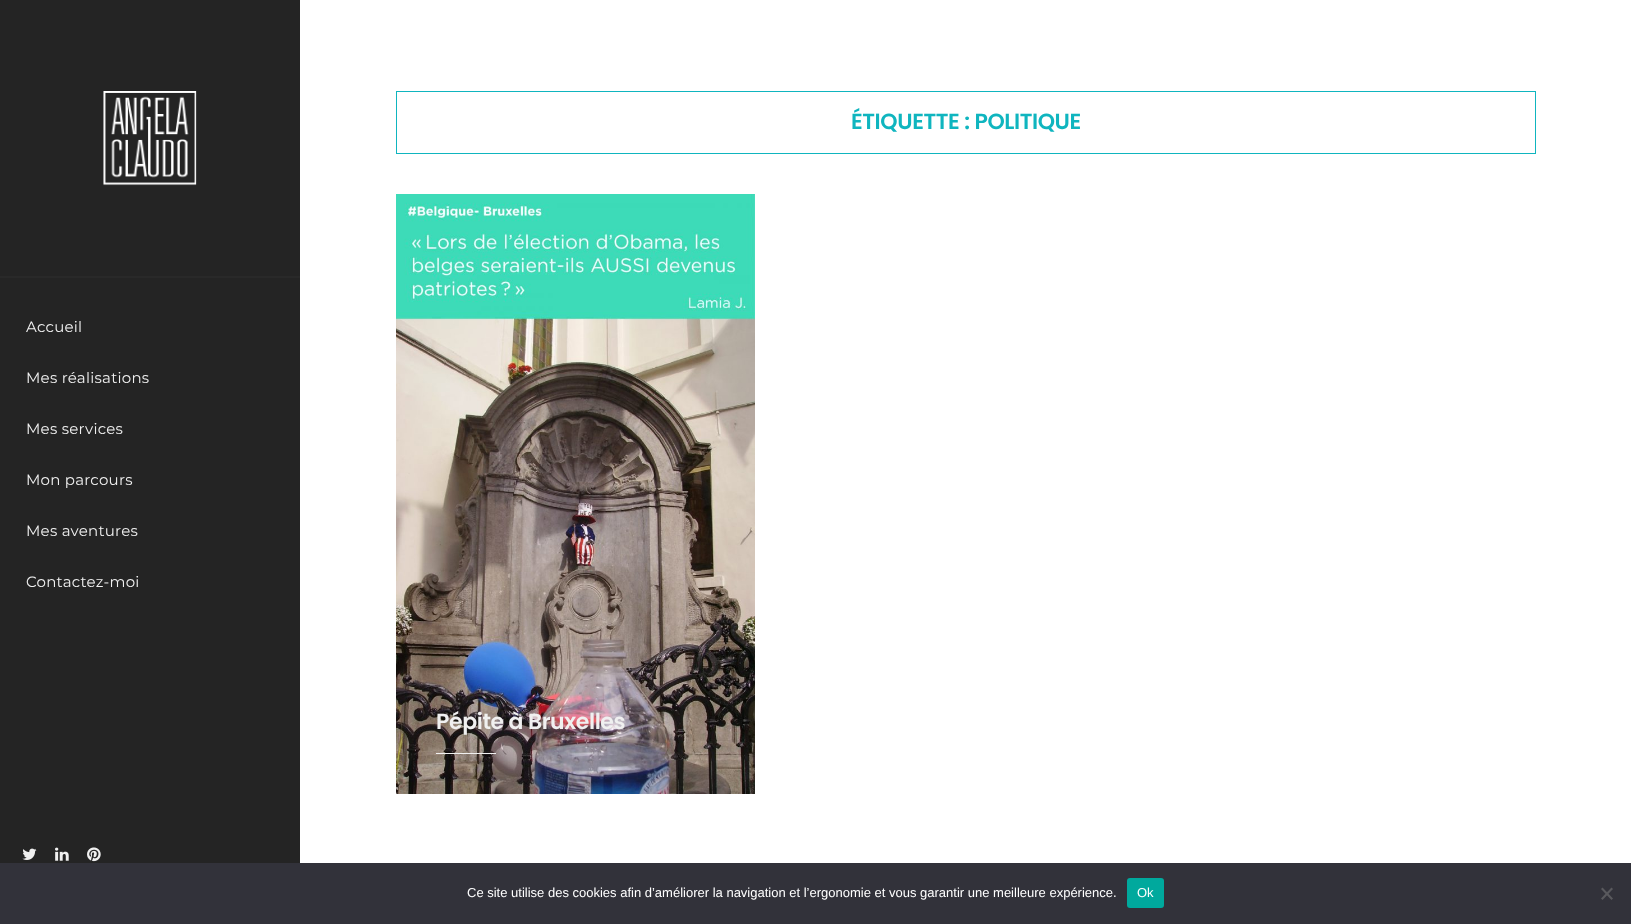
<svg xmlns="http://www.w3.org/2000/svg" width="1631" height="924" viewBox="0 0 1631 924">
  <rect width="100%" height="100%" fill="rgb(255,255,255)"/>
  <rect x="0" y="0" width="300" height="863" fill="rgb(36,36,36)"/>
  <image x="103" y="91" width="94" height="95" href="pic1.png"/>
  <rect x="0" y="276" width="300" height="2" fill="rgb(41,41,41)"/>
  <g font-family="Montserrat" font-size="15" letter-spacing="0.25" fill="rgb(240,240,240)">
    <text x="26" y="332">Accueil</text>
    <text x="26" y="383">Mes réalisations</text>
    <text x="26" y="434">Mes services</text>
    <text x="26" y="485">Mon parcours</text>
    <text x="26" y="536">Mes aventures</text>
    <text x="26" y="587">Contactez-moi</text>
  </g>
  <image x="22" y="848" width="15" height="12" href="pic2.png"/>
  <image x="55" y="847" width="14" height="14" href="pic3.png"/>
  <image x="87" y="847" width="14" height="15" href="pic4.png"/>
  <rect x="396.5" y="91.5" width="1139" height="62" fill="none" stroke="rgb(15,181,191)"/>
  <text x="851" y="129" font-family="Poppins" font-size="22" font-weight="600" letter-spacing="-0.4" fill="rgb(15,181,191)">ÉTIQUETTE : POLITIQUE</text>
  <image x="396" y="194" width="359" height="600" href="pic5.png"/>
  <text x="436" y="729" font-family="Poppins" font-size="22" font-weight="600" letter-spacing="-0.4" fill="rgb(240,240,240)">Pépite à Bruxelles</text>
  <rect x="436" y="753" width="60" height="1" fill="rgb(240,240,240)"/>
  <rect x="0" y="863" width="1631" height="61" fill="rgb(50,50,58)"/>
  <text x="467" y="897" font-family="Liberation Sans" font-size="13" fill="rgb(255,255,255)">Ce site utilise des cookies afin d’améliorer la navigation et l’ergonomie et vous garantir une meilleure expérience.</text>
  <rect x="1127" y="878" width="37" height="30" rx="3" fill="rgb(0,169,157)"/>
  <text x="1137" y="897" font-family="Liberation Sans" font-size="13" fill="rgb(255,255,255)">Ok</text>
  <path d="M1611.5 887.5L1613 889L1602.5 900L1601 898.5Z" fill="rgb(89,89,93)"/>
  <path d="M1601 889L1602.5 887.5L1613 898.5L1611.5 900Z" fill="rgb(89,89,93)"/>
</svg>
